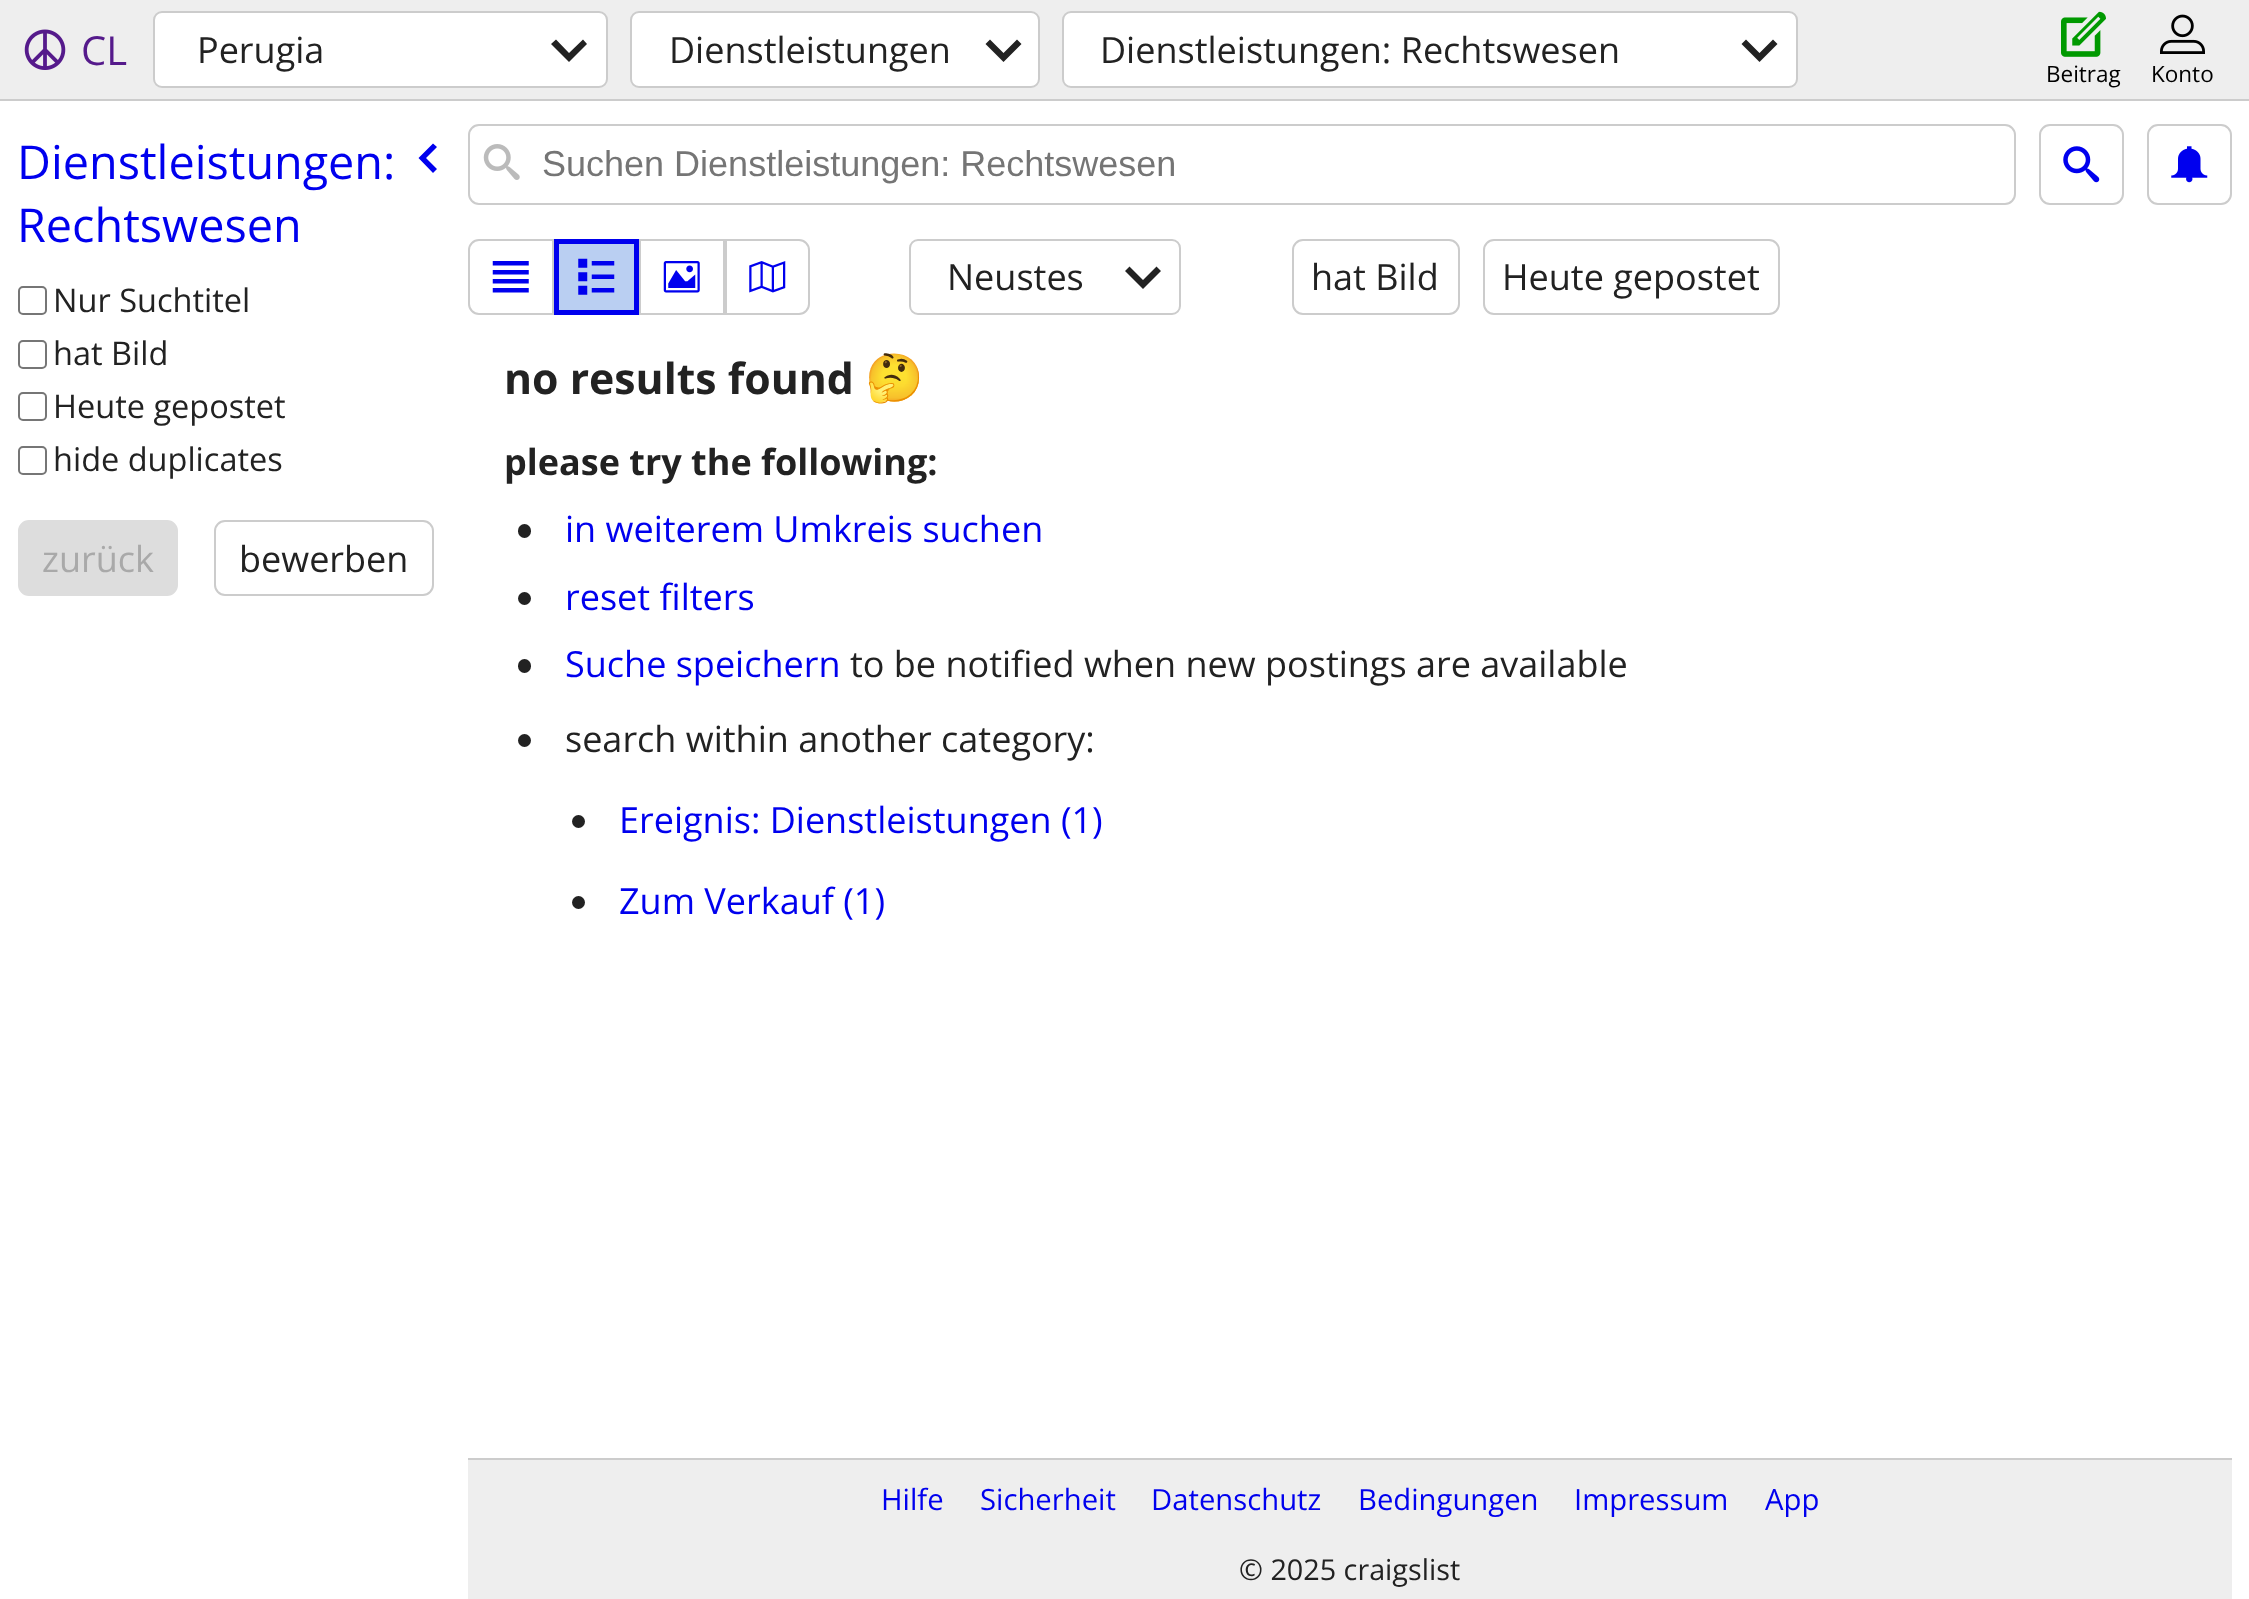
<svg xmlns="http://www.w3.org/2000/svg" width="2249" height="1599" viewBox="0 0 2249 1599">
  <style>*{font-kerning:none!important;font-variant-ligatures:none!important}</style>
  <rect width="100%" height="100%" fill="rgb(255,255,255)"/>
  <rect x="0" y="0" width="2249" height="99" fill="rgb(238,238,238)"/>
  <rect x="0" y="99" width="2249" height="2" fill="rgb(204,204,204)"/>
  <image x="24" y="29" width="42" height="41" href="pic1.png"/>
  <text x="81" y="65" font-family="Open Sans" font-size="40" fill="rgb(85,26,139)">CL</text>
  <rect x="154" y="12" width="453" height="75" rx="8" fill="rgb(255,255,255)" stroke="rgb(204,204,204)" stroke-width="2"/>
  <text x="197" y="63" font-family="Open Sans" font-size="36" fill="rgb(34,34,34)">Perugia</text>
  <path d="M587 44L583 39.5L569 53L556 39.5L551 44L569 62Z" fill="rgb(34,34,34)"/>
  <rect x="631" y="12" width="408" height="75" rx="8" fill="rgb(255,255,255)" stroke="rgb(204,204,204)" stroke-width="2"/>
  <text x="669" y="63" font-family="Open Sans" font-size="36" fill="rgb(34,34,34)">Dienstleistungen</text>
  <path d="M1021.5 44L1017 39.5L1003.5 53L990 39.5L985.5 44L1003.5 62Z" fill="rgb(34,34,34)"/>
  <rect x="1063" y="12" width="734" height="75" rx="8" fill="rgb(255,255,255)" stroke="rgb(204,204,204)" stroke-width="2"/>
  <text x="1100" y="63" font-family="Open Sans" font-size="36" fill="rgb(34,34,34)">Dienstleistungen: Rechtswesen</text>
  <path d="M1777.5 44L1773 39.5L1759.5 53L1746 39.5L1741.5 44L1759.5 62Z" fill="rgb(34,34,34)"/>
  <image x="2061" y="11" width="45" height="46" href="pic2.png"/>
  <text x="2046" y="82" font-family="Open Sans" font-size="22.5" fill="rgb(0,0,0)">Beitrag</text>
  <image x="2160" y="14" width="45" height="40" href="pic3.png"/>
  <text x="2151" y="82" font-family="Open Sans" font-size="22.5" fill="rgb(0,0,0)">Konto</text>
  <g font-family="Open Sans" font-size="46.75" fill="rgb(0,0,238)">
    <text>
      <tspan x="17" y="179">Dienstleistungen:</tspan>
      <tspan x="17" y="242">Rechtswesen</tspan>
    </text>
  </g>
  <path d="M433 173L437 169L426 158L437 147L433 143.5L418.5 158Z" fill="rgb(0,0,238)"/>
  <rect x="19" y="287" width="27" height="27" rx="4" fill="none" stroke="rgb(118,118,118)" stroke-width="2"/>
  <text x="53" y="312" font-family="Open Sans" font-size="32.5" fill="rgb(34,34,34)">Nur Suchtitel</text>
  <rect x="19" y="341" width="27" height="27" rx="4" fill="none" stroke="rgb(118,118,118)" stroke-width="2"/>
  <text x="53" y="365" font-family="Open Sans" font-size="32.5" fill="rgb(34,34,34)">hat Bild</text>
  <rect x="19" y="393" width="27" height="27" rx="4" fill="none" stroke="rgb(118,118,118)" stroke-width="2"/>
  <text x="53" y="418" font-family="Open Sans" font-size="32.5" fill="rgb(34,34,34)">Heute gepostet</text>
  <rect x="19" y="447" width="27" height="27" rx="4" fill="none" stroke="rgb(118,118,118)" stroke-width="2"/>
  <text x="53" y="471" font-family="Open Sans" font-size="32.5" fill="rgb(34,34,34)">hide duplicates</text>
  <rect x="19" y="521" width="158" height="74" rx="10" fill="rgb(221,221,221)" stroke="rgb(221,221,221)" stroke-width="2"/>
  <text x="42" y="572" font-family="Open Sans" font-size="36" fill="rgb(169,169,169)">zurück</text>
  <rect x="215" y="521" width="218" height="74" rx="10" fill="none" stroke="rgb(204,204,204)" stroke-width="2"/>
  <text x="239" y="572" font-family="Open Sans" font-size="36" fill="rgb(34,34,34)">bewerben</text>
  <rect x="469" y="125" width="1546" height="79" rx="10" fill="none" stroke="rgb(204,204,204)" stroke-width="2"/>
  <image x="483" y="144" width="37" height="36" href="pic4.png"/>
  <text x="542" y="176" font-family="Liberation Sans" font-size="36" fill="rgb(117,117,117)">Suchen Dienstleistungen: Rechtswesen</text>
  <rect x="2040" y="125" width="83" height="79" rx="10" fill="none" stroke="rgb(204,204,204)" stroke-width="2"/>
  <image x="2063" y="146" width="37" height="37" href="pic5.png"/>
  <rect x="2148" y="125" width="83" height="79" rx="10" fill="none" stroke="rgb(204,204,204)" stroke-width="2"/>
  <image x="2171" y="146" width="37" height="37" href="pic6.png"/>
  <path d="M479 240H553V314H479C473.5 314 469 309.5 469 304V250C469 244.5 473.5 240 479 240Z" fill="none" stroke="rgb(204,204,204)" stroke-width="2"/>
  <image x="492" y="261" width="37" height="32" href="pic7.png"/>
  <rect x="556.5" y="241.5" width="80" height="71" fill="rgb(186,207,242)" stroke="rgb(0,0,238)" stroke-width="5"/>
  <image x="578" y="258" width="37" height="37" href="pic8.png"/>
  <rect x="640" y="240" width="84" height="74" fill="none" stroke="rgb(204,204,204)" stroke-width="2"/>
  <image x="663" y="261" width="37" height="32" href="pic9.png"/>
  <path d="M726 240H799C804.5 240 809 244.5 809 250V304C809 309.5 804.5 314 799 314H726Z" fill="none" stroke="rgb(204,204,204)" stroke-width="2"/>
  <image x="749" y="261" width="37" height="32" href="pic10.png"/>
  <rect x="910" y="240" width="270" height="74" rx="8" fill="none" stroke="rgb(204,204,204)" stroke-width="2"/>
  <text x="947" y="290" font-family="Open Sans" font-size="36" fill="rgb(34,34,34)">Neustes</text>
  <path d="M1161 271L1156.5 266.5L1143 280L1129.5 266.5L1125 271L1143 289Z" fill="rgb(34,34,34)"/>
  <rect x="1293" y="240" width="166" height="74" rx="10" fill="none" stroke="rgb(204,204,204)" stroke-width="2"/>
  <text x="1311" y="290" font-family="Open Sans" font-size="36" fill="rgb(34,34,34)">hat Bild</text>
  <rect x="1484" y="240" width="295" height="74" rx="10" fill="none" stroke="rgb(204,204,204)" stroke-width="2"/>
  <text x="1502" y="290" font-family="Open Sans" font-size="36" fill="rgb(34,34,34)">Heute gepostet</text>
  <text x="504" y="394" font-family="Open Sans" font-size="42.75" font-weight="bold" fill="rgb(34,34,34)">no results found</text>
  <text x="865" y="394" font-family="Noto Color Emoji" font-size="47" font-weight="bold" fill="rgb(34,34,34)">🤔</text>
  <text x="504" y="475" font-family="Open Sans" font-size="36" font-weight="bold" fill="rgb(34,34,34)">please try the following:</text>
  <rect x="518" y="524" width="13" height="14" rx="6.5" fill="rgb(34,34,34)"/>
  <text x="565" y="542" font-family="Open Sans" font-size="36" fill="rgb(0,0,238)">in weiterem Umkreis suchen</text>
  <circle cx="524.5" cy="598.5" r="6.5" fill="rgb(34,34,34)"/>
  <text x="565" y="610" font-family="Open Sans" font-size="36" fill="rgb(0,0,238)">reset filters</text>
  <rect x="518" y="659" width="13" height="14" rx="6.5" fill="rgb(34,34,34)"/>
  <text x="565" y="677" font-family="Open Sans" font-size="36" fill="rgb(0,0,238)">Suche speichern</text>
  <text x="850" y="677" font-family="Open Sans" font-size="36" fill="rgb(34,34,34)">to be notified when new postings are available</text>
  <circle cx="524.5" cy="740.5" r="6.5" fill="rgb(34,34,34)"/>
  <text x="565" y="752" font-family="Open Sans" font-size="36" fill="rgb(34,34,34)">search within another category:</text>
  <circle cx="578.5" cy="821.5" r="6.5" fill="rgb(34,34,34)"/>
  <text x="619" y="833" font-family="Open Sans" font-size="36" fill="rgb(0,0,238)">Ereignis: Dienstleistungen (1)</text>
  <circle cx="578.5" cy="902.5" r="6.5" fill="rgb(34,34,34)"/>
  <text x="619" y="914" font-family="Open Sans" font-size="36" fill="rgb(0,0,238)">Zum Verkauf (1)</text>
  <rect x="468" y="1460" width="1764" height="139" fill="rgb(238,238,238)"/>
  <rect x="468" y="1458" width="1764" height="2" fill="rgb(204,204,204)"/>
  <g font-family="Open Sans" font-size="29.25" fill="rgb(0,0,238)">
    <text x="881" y="1510">Hilfe</text>
    <text x="980" y="1510">Sicherheit</text>
    <text x="1151" y="1510">Datenschutz</text>
    <text x="1358" y="1510">Bedingungen</text>
    <text x="1574" y="1510">Impressum</text>
    <text x="1765" y="1510">App</text>
  </g>
  <text x="1239" y="1580" font-family="Open Sans" font-size="28.75" fill="rgb(34,34,34)">© 2025 craigslist</text>
</svg>
